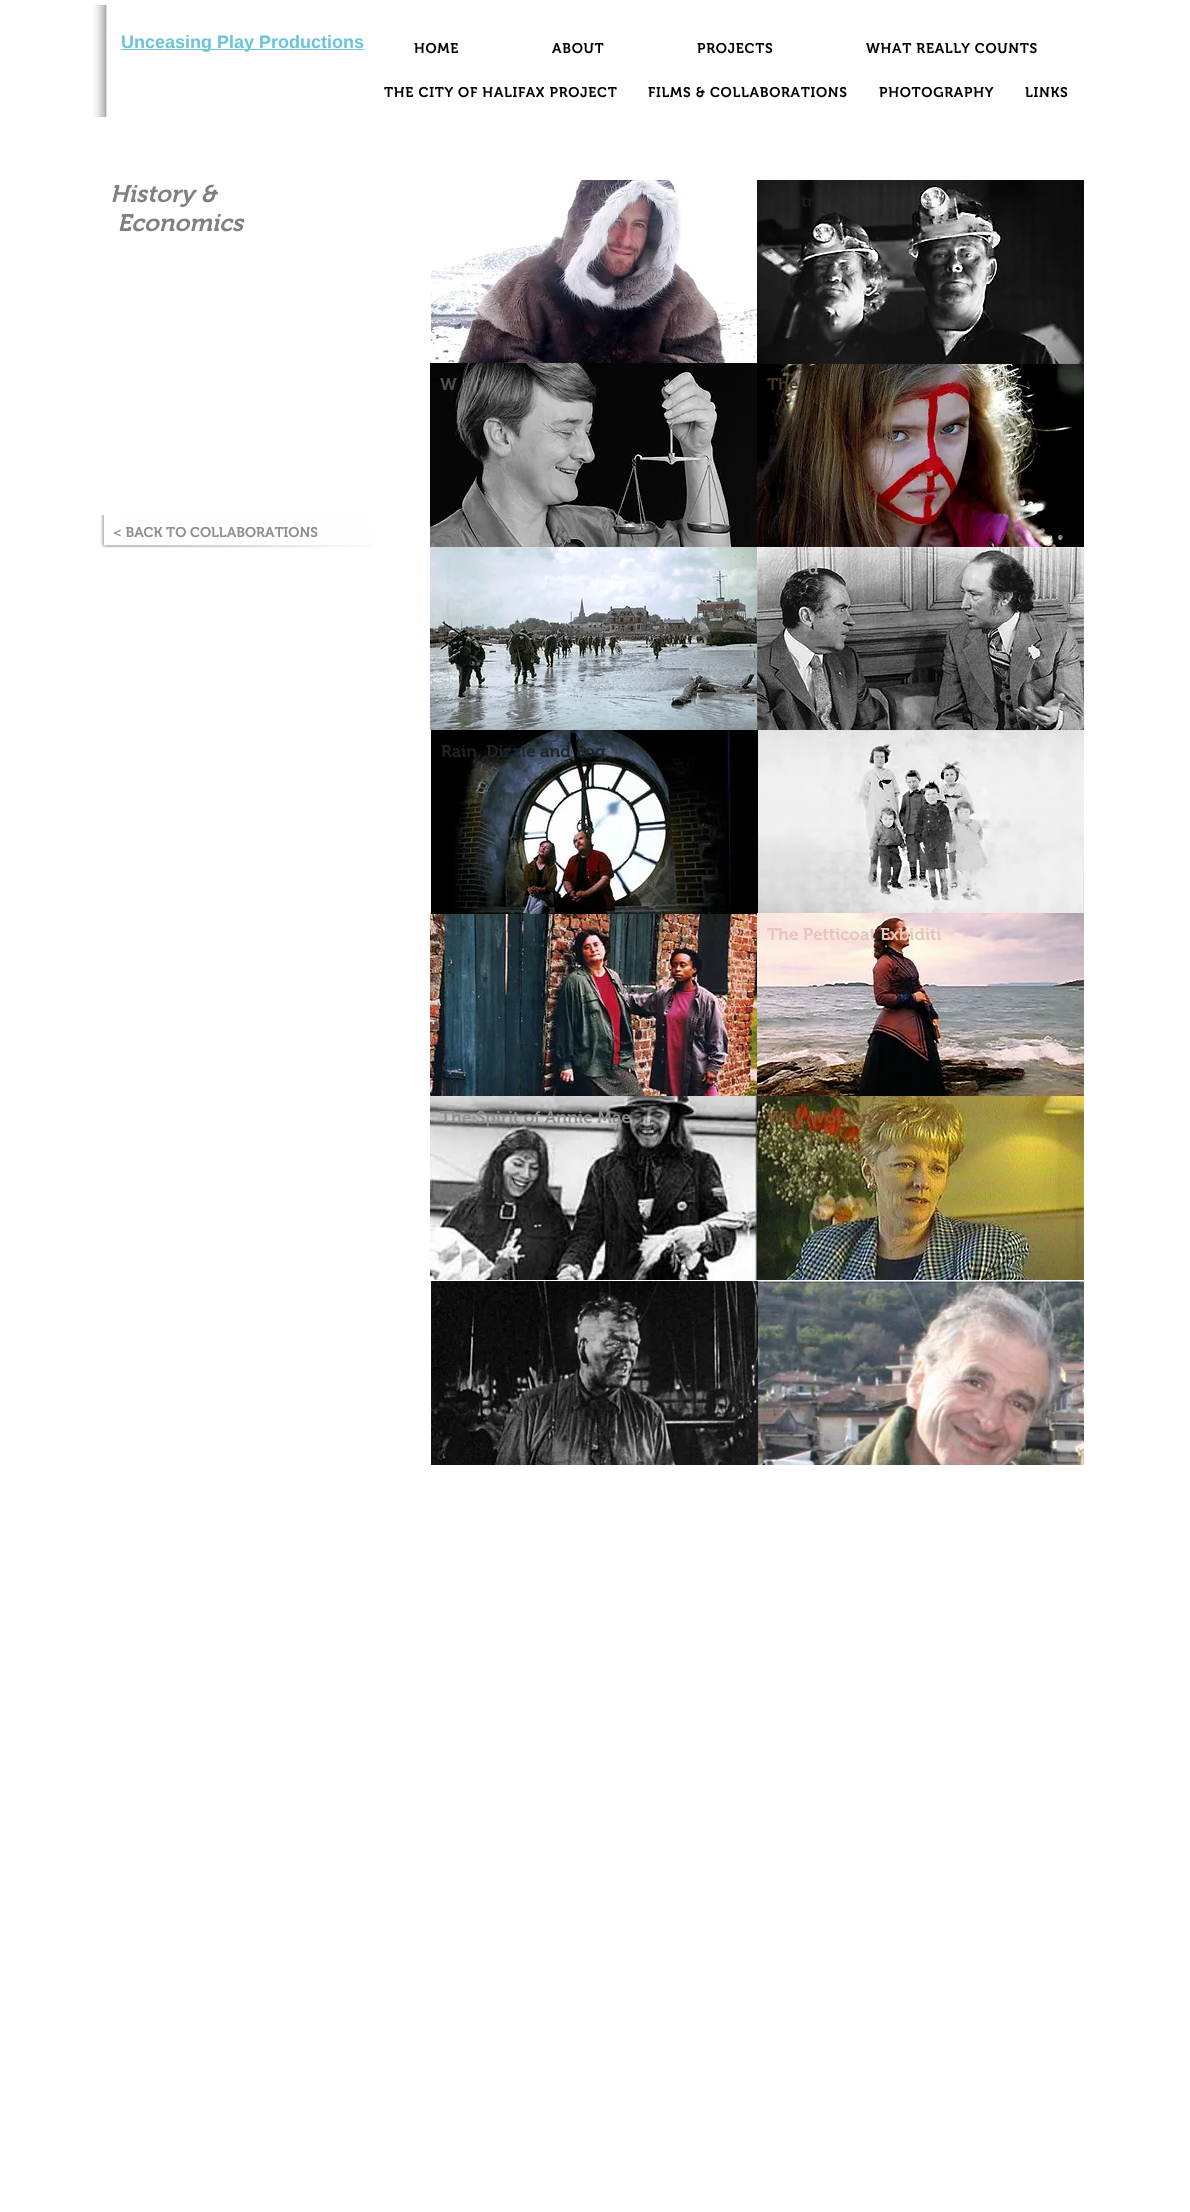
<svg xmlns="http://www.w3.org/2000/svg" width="1190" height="2212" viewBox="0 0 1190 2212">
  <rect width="100%" height="100%" fill="rgb(255,255,255)"/>
  <image x="93" y="5" width="14" height="112" href="pic1.png"/>
  <rect x="121" y="49" width="243" height="1" fill="rgb(107,196,215)"/>
  <text x="121" y="48" font-family="Liberation Sans" font-size="18" font-weight="bold" fill="rgb(107,196,215)">Unceasing Play Productions</text>
  <g font-family="'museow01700'" font-size="14" font-weight="600" letter-spacing="0.7" fill="rgb(0,0,0)">
    <text x="414" y="53">HOME</text>
    <text x="552" y="53">ABOUT</text>
    <text x="697" y="53">PROJECTS</text>
    <text x="866" y="53">WHAT REALLY COUNTS</text>
    <text x="384" y="97">THE CITY OF HALIFAX PROJECT</text>
    <text x="648" y="97">FILMS &amp; COLLABORATIONS</text>
    <text x="879" y="97">PHOTOGRAPHY</text>
    <text x="1025" y="97">LINKS</text>
  </g>
  <g font-family="'museow01700'" font-size="24" font-weight="600" font-style="italic" fill="rgb(128,128,128)">
    <text x="110" y="202">History &amp;</text>
    <text x="117" y="231">Economics</text>
  </g>
  <image x="431" y="180" width="326" height="183" href="pic2.png"/>
  <image x="757" y="180" width="327" height="184" href="pic3.png"/>
  <text x="801" y="207" font-family="'museow01700'" font-size="17" font-weight="600" fill="rgb(30,30,30)">tr</text>
  <image x="430" y="363" width="327" height="184" href="pic4.png"/>
  <g font-family="'museow01700'" font-size="17" font-weight="600" fill="rgb(80,80,80)">
    <text x="440" y="390">W</text>
    <text x="478" y="390">'</text>
  </g>
  <image x="757" y="364" width="327" height="183" href="pic5.png"/>
  <text x="767" y="390" font-family="'museow01700'" font-size="17" font-weight="600" fill="rgb(68,54,43)">The</text>
  <image x="100" y="515" width="271" height="33" href="pic6.png"/>
  <text x="113" y="537" font-family="'museow01700'" font-size="14" font-weight="600" fill="rgb(143,143,143)">&lt; BACK TO COLLABORATIONS</text>
  <image x="430" y="547" width="327" height="183" href="pic7.png"/>
  <image x="757" y="547" width="327" height="183" href="pic8.png"/>
  <text x="808" y="574" font-family="'museow01700'" font-size="17" font-weight="600" fill="rgb(171,171,171)">d</text>
  <image x="430" y="913" width="327" height="183" href="pic11.png"/>
  <image x="431" y="730" width="327" height="184" href="pic9.png"/>
  <text x="441" y="757" font-family="'museow01700'" font-size="17" font-weight="600" fill="rgb(30,36,43)">Rain, Dizzle and Fog</text>
  <image x="758" y="730" width="326" height="183" href="pic10.png"/>
  <image x="757" y="913" width="327" height="183" href="pic12.png"/>
  <text x="767" y="940" font-family="'museow01700'" font-size="17" font-weight="600" fill="rgb(227,199,191)">The Petticoat Exbiditi</text>
  <image x="430" y="1096" width="327" height="184" href="pic13.png"/>
  <text x="440" y="1123" font-family="'museow01700'" font-size="17" font-weight="600" fill="rgb(143,143,143)">The Spirit of Annie Mae</text>
  <image x="757" y="1096" width="327" height="184" href="pic14.png"/>
  <text x="767" y="1123" font-family="'museow01700'" font-size="17" font-weight="600" fill="rgb(125,85,42)">Why Women Run</text>
  <image x="431" y="1281" width="327" height="184" href="pic15.png"/>
  <image x="758" y="1281" width="326" height="184" href="pic16.png"/>
</svg>
